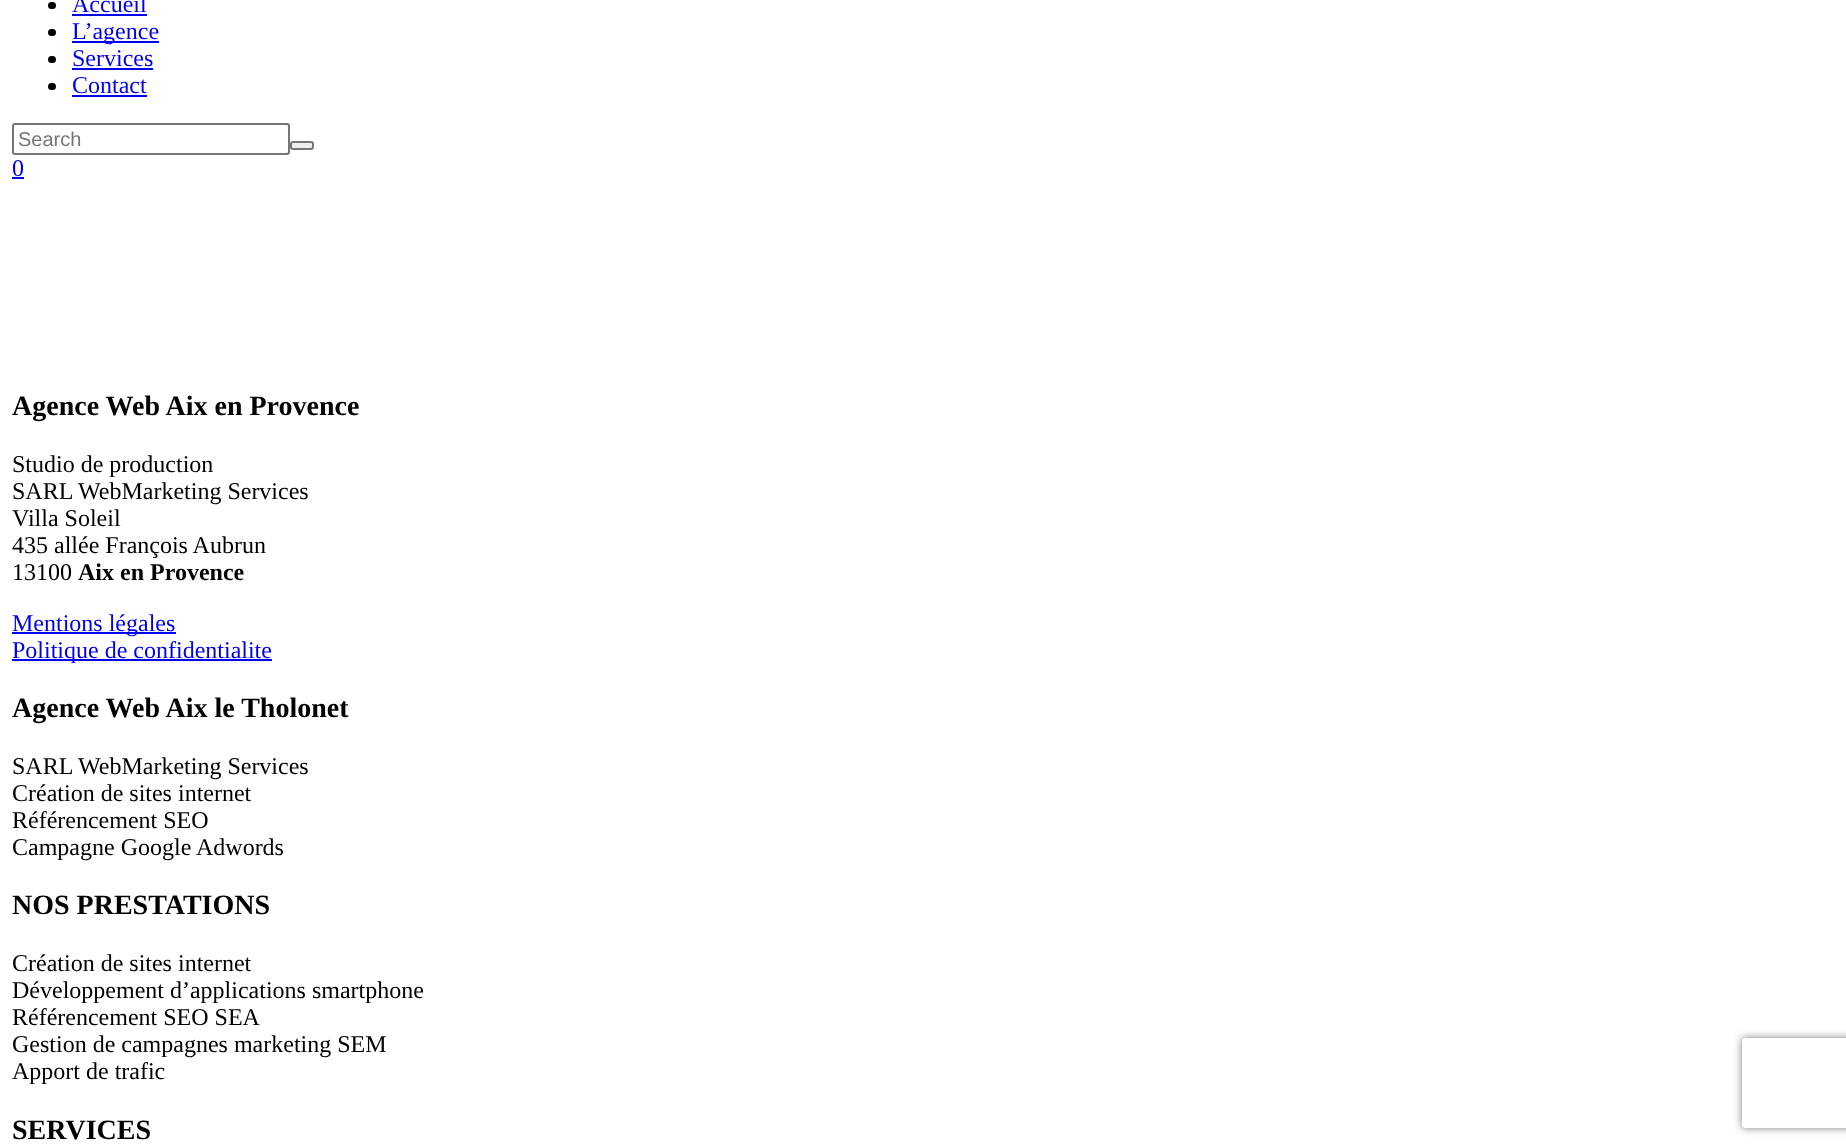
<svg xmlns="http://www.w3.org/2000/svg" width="1846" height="1148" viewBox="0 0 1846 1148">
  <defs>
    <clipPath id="clip1"><path d="M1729 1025H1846V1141H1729ZM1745 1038H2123C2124.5 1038 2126 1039.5 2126 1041V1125C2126 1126.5 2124.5 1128 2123 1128H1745C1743.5 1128 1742 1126.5 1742 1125V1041C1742 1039.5 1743.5 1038 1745 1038Z" clip-rule="evenodd"/></clipPath>
  </defs>
  <rect width="100%" height="100%" fill="rgb(255,255,255)"/>
  <rect x="48" y="2" width="8" height="7" rx="3.5" fill="rgb(0,0,0)"/>
  <text x="72" y="12" font-family="Liberation Serif" font-size="24" fill="rgb(0,0,238)">Accueil</text>
  <rect x="72" y="14" width="75" height="2" fill="rgb(0,0,238)"/>
  <rect x="48" y="29" width="8" height="7" rx="3.5" fill="rgb(0,0,0)"/>
  <rect x="72" y="41" width="87" height="2" fill="rgb(0,0,238)"/>
  <text x="72" y="39" font-family="Liberation Serif" font-size="24" fill="rgb(0,0,238)">L’agence</text>
  <rect x="48" y="56" width="8" height="7" rx="3.5" fill="rgb(0,0,0)"/>
  <text x="72" y="66" font-family="Liberation Serif" font-size="24" fill="rgb(0,0,238)">Services</text>
  <rect x="72" y="68" width="81" height="2" fill="rgb(0,0,238)"/>
  <rect x="48" y="83" width="8" height="7" rx="3.5" fill="rgb(0,0,0)"/>
  <text x="72" y="93" font-family="Liberation Serif" font-size="24" fill="rgb(0,0,238)">Contact</text>
  <rect x="72" y="95" width="75" height="2" fill="rgb(0,0,238)"/>
  <rect x="13" y="124" width="276" height="30" rx="2" fill="none" stroke="rgb(118,118,118)" stroke-width="2"/>
  <text x="18" y="146" font-family="Liberation Sans" font-size="20" fill="rgb(117,117,117)">Search</text>
  <rect x="291" y="142" width="22" height="7" rx="2" fill="rgb(239,239,239)" stroke="rgb(118,118,118)" stroke-width="2"/>
  <text x="12" y="176" font-family="Liberation Serif" font-size="24" fill="rgb(0,0,238)">0</text>
  <rect x="12" y="177" width="12" height="2" fill="rgb(0,0,238)"/>
  <text x="12" y="415" font-family="Liberation Serif" font-size="28" font-weight="bold" fill="rgb(0,0,0)">Agence Web Aix en Provence</text>
  <g font-family="Liberation Serif" font-size="24" fill="rgb(0,0,0)">
    <text>
      <tspan x="12" y="472">Studio de production</tspan>
      <tspan x="12" y="499">SARL WebMarketing Services</tspan>
      <tspan x="12" y="526">Villa Soleil</tspan>
      <tspan x="12" y="553">435 allée François Aubrun</tspan>
      <tspan x="12" y="580">13100</tspan>
    </text>
  </g>
  <text x="78" y="580" font-family="Liberation Serif" font-size="24" font-weight="bold" fill="rgb(0,0,0)">Aix en Provence</text>
  <rect x="12" y="632" width="164" height="2" fill="rgb(0,0,238)"/>
  <text x="12" y="631" font-family="Liberation Serif" font-size="24" fill="rgb(0,0,238)">Mentions légales</text>
  <rect x="12" y="659" width="260" height="2" fill="rgb(0,0,238)"/>
  <text x="12" y="658" font-family="Liberation Serif" font-size="24" fill="rgb(0,0,238)">Politique de confidentialite</text>
  <text x="12" y="717" font-family="Liberation Serif" font-size="28" font-weight="bold" fill="rgb(0,0,0)">Agence Web Aix le Tholonet</text>
  <g font-family="Liberation Serif" font-size="24" fill="rgb(0,0,0)">
    <text>
      <tspan x="12" y="774">SARL WebMarketing Services</tspan>
      <tspan x="12" y="801">Création de sites internet</tspan>
      <tspan x="12" y="828">Référencement SEO</tspan>
      <tspan x="12" y="855">Campagne Google Adwords</tspan>
    </text>
  </g>
  <text x="12" y="914" font-family="Liberation Serif" font-size="28" font-weight="bold" fill="rgb(0,0,0)">NOS PRESTATIONS</text>
  <g font-family="Liberation Serif" font-size="24" fill="rgb(0,0,0)">
    <text>
      <tspan x="12" y="971">Création de sites internet</tspan>
      <tspan x="12" y="998">Développement d’applications smartphone</tspan>
      <tspan x="12" y="1025">Référencement SEO SEA</tspan>
      <tspan x="12" y="1052">Gestion de campagnes marketing SEM</tspan>
      <tspan x="12" y="1079">Apport de trafic</tspan>
    </text>
  </g>
  <text x="12" y="1139" font-family="Liberation Serif" font-size="28" font-weight="bold" fill="rgb(0,0,0)">SERVICES</text>
  <g clip-path="url(#clip1)">
    <rect x="1742" y="1038" width="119" height="90" rx="3" fill="rgb(128,128,128)" filter="blur(4px)"/>
  </g>
</svg>
